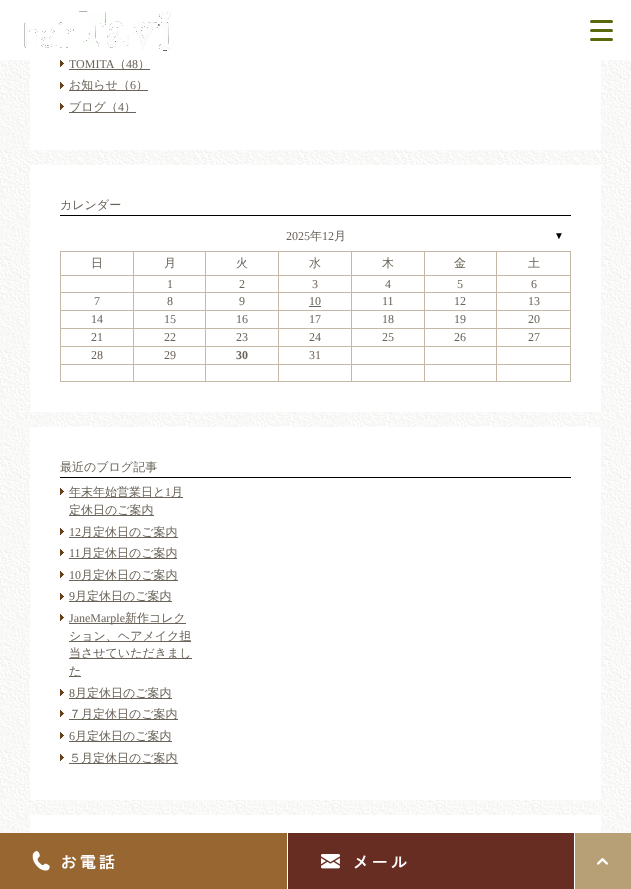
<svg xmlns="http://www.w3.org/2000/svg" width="631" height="889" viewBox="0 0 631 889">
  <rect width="100%" height="100%" fill="rgb(255,255,255)"/>
  <image x="0" y="60" width="631" height="773" href="pic1.png"/>
  <rect x="30" y="60" width="571" height="90" fill="rgb(255,255,255)"/>
  <rect x="69" y="69" width="81" height="1" fill="rgb(106,99,89)"/>
  <g font-family="WenQuanYi Zen Hei" font-size="12" font-weight="500" fill="rgb(106,99,89)">
    <text x="114" y="68">（</text>
    <text x="138" y="68">）</text>
  </g>
  <rect x="124" y="59" width="17" height="1" fill="rgb(255,255,255)"/>
  <image x="24" y="11" width="147" height="40" href="pic2.png"/>
  <rect x="590" y="20" width="23" height="3" rx="1.5" fill="rgb(90,103,10)"/>
  <rect x="590" y="29" width="23" height="3" rx="1.5" fill="rgb(90,103,10)"/>
  <rect x="590" y="38" width="23" height="3" rx="1.5" fill="rgb(90,103,10)"/>
  <image x="60" y="60" width="4" height="7" href="pic3.png"/>
  <g font-family="Liberation Serif" font-size="12" fill="rgb(106,99,89)">
    <text x="69" y="68">TOMITA</text>
    <text x="126" y="68">48</text>
  </g>
  <image x="60" y="82" width="4" height="7" href="pic3.png"/>
  <rect x="69" y="90" width="79" height="1" fill="rgb(106,99,89)"/>
  <text x="69" y="89" font-family="WenQuanYi Zen Hei" font-size="12" font-weight="500" fill="rgb(106,99,89)">お知らせ（</text>
  <text x="130" y="89" font-family="Liberation Serif" font-size="12" fill="rgb(106,99,89)">6</text>
  <text x="136" y="89" font-family="WenQuanYi Zen Hei" font-size="12" font-weight="500" fill="rgb(106,99,89)">）</text>
  <image x="60" y="103" width="4" height="7" href="pic3.png"/>
  <rect x="69" y="112" width="67" height="1" fill="rgb(106,99,89)"/>
  <text x="69" y="111" font-family="WenQuanYi Zen Hei" font-size="12" font-weight="500" fill="rgb(106,99,89)">ブログ（</text>
  <text x="118" y="111" font-family="Liberation Serif" font-size="12" fill="rgb(106,99,89)">4</text>
  <text x="124" y="111" font-family="WenQuanYi Zen Hei" font-size="12" font-weight="500" fill="rgb(106,99,89)">）</text>
  <rect x="30" y="165" width="571" height="247" fill="rgb(255,255,255)"/>
  <rect x="60" y="215" width="511" height="1" fill="rgb(0,0,0)"/>
  <text x="60" y="209" font-family="WenQuanYi Zen Hei" font-size="12" font-weight="500" fill="rgb(106,99,89)">カレンダー</text>
  <text x="286" y="240" font-family="Liberation Serif" font-size="12" fill="rgb(106,99,89)">2025</text>
  <text x="310" y="240" font-family="WenQuanYi Zen Hei" font-size="12" font-weight="500" fill="rgb(106,99,89)">年</text>
  <text x="322" y="240" font-family="Liberation Serif" font-size="12" fill="rgb(106,99,89)">12</text>
  <text x="334" y="240" font-family="WenQuanYi Zen Hei" font-size="12" font-weight="500" fill="rgb(106,99,89)">月</text>
  <text x="554" y="239" font-family="Liberation Sans" font-size="10" fill="rgb(0,0,0)">▼</text>
  <rect x="570" y="251" width="1" height="24" fill="rgb(197,184,167)"/>
  <rect x="60" y="251" width="1" height="24" fill="rgb(197,184,167)"/>
  <rect x="61" y="251" width="509" height="1" fill="rgb(197,184,167)"/>
  <rect x="133" y="251" width="1" height="24" fill="rgb(197,184,167)"/>
  <text x="91" y="267" font-family="WenQuanYi Zen Hei" font-size="12" font-weight="500" fill="rgb(106,99,89)">日</text>
  <rect x="205" y="251" width="1" height="24" fill="rgb(197,184,167)"/>
  <text x="164" y="267" font-family="WenQuanYi Zen Hei" font-size="12" font-weight="500" fill="rgb(106,99,89)">月</text>
  <rect x="278" y="251" width="1" height="24" fill="rgb(197,184,167)"/>
  <text x="236" y="267" font-family="WenQuanYi Zen Hei" font-size="12" font-weight="500" fill="rgb(106,99,89)">火</text>
  <rect x="351" y="251" width="1" height="24" fill="rgb(197,184,167)"/>
  <text x="309" y="267" font-family="WenQuanYi Zen Hei" font-size="12" font-weight="500" fill="rgb(106,99,89)">水</text>
  <rect x="424" y="251" width="1" height="24" fill="rgb(197,184,167)"/>
  <text x="382" y="267" font-family="WenQuanYi Zen Hei" font-size="12" font-weight="500" fill="rgb(106,99,89)">木</text>
  <rect x="496" y="251" width="1" height="24" fill="rgb(197,184,167)"/>
  <g font-family="WenQuanYi Zen Hei" font-size="12" font-weight="500" fill="rgb(106,99,89)">
    <text x="454" y="267">金</text>
    <text x="528" y="267">土</text>
  </g>
  <rect x="60" y="275" width="511" height="1" fill="rgb(197,184,167)"/>
  <rect x="570" y="275" width="1" height="107" fill="rgb(197,184,167)"/>
  <rect x="60" y="275" width="1" height="107" fill="rgb(197,184,167)"/>
  <rect x="133" y="276" width="1" height="106" fill="rgb(197,184,167)"/>
  <rect x="61" y="292" width="73" height="1" fill="rgb(197,184,167)"/>
  <rect x="205" y="276" width="1" height="106" fill="rgb(197,184,167)"/>
  <rect x="134" y="292" width="72" height="1" fill="rgb(197,184,167)"/>
  <text x="167" y="288" font-family="Liberation Serif" font-size="12" fill="rgb(106,99,89)">1</text>
  <rect x="278" y="276" width="1" height="106" fill="rgb(197,184,167)"/>
  <rect x="206" y="292" width="73" height="1" fill="rgb(197,184,167)"/>
  <text x="239" y="288" font-family="Liberation Serif" font-size="12" fill="rgb(106,99,89)">2</text>
  <rect x="351" y="276" width="1" height="106" fill="rgb(197,184,167)"/>
  <rect x="279" y="292" width="73" height="1" fill="rgb(197,184,167)"/>
  <text x="312" y="288" font-family="Liberation Serif" font-size="12" fill="rgb(106,99,89)">3</text>
  <rect x="424" y="276" width="1" height="106" fill="rgb(197,184,167)"/>
  <rect x="352" y="292" width="73" height="1" fill="rgb(197,184,167)"/>
  <text x="385" y="288" font-family="Liberation Serif" font-size="12" fill="rgb(106,99,89)">4</text>
  <rect x="496" y="276" width="1" height="106" fill="rgb(197,184,167)"/>
  <rect x="425" y="292" width="145" height="1" fill="rgb(197,184,167)"/>
  <g font-family="Liberation Serif" font-size="12" fill="rgb(106,99,89)">
    <text x="457" y="288">5</text>
    <text x="531" y="288">6</text>
  </g>
  <rect x="61" y="310" width="509" height="1" fill="rgb(197,184,167)"/>
  <g font-family="Liberation Serif" font-size="12" fill="rgb(106,99,89)">
    <text x="94" y="305">7</text>
    <text x="167" y="305">8</text>
    <text x="239" y="305">9</text>
    <text x="309" y="305">10</text>
  </g>
  <rect x="309" y="306" width="12" height="1" fill="rgb(106,99,89)"/>
  <g font-family="Liberation Serif" font-size="12" fill="rgb(106,99,89)">
    <text x="382" y="305">11</text>
    <text x="454" y="305">12</text>
    <text x="528" y="305">13</text>
  </g>
  <rect x="61" y="328" width="509" height="1" fill="rgb(197,184,167)"/>
  <g font-family="Liberation Serif" font-size="12" fill="rgb(106,99,89)">
    <text x="91" y="323">14</text>
    <text x="164" y="323">15</text>
    <text x="236" y="323">16</text>
    <text x="309" y="323">17</text>
    <text x="382" y="323">18</text>
    <text x="454" y="323">19</text>
    <text x="528" y="323">20</text>
  </g>
  <rect x="61" y="346" width="509" height="1" fill="rgb(197,184,167)"/>
  <g font-family="Liberation Serif" font-size="12" fill="rgb(106,99,89)">
    <text x="91" y="341">21</text>
    <text x="164" y="341">22</text>
    <text x="236" y="341">23</text>
    <text x="309" y="341">24</text>
    <text x="382" y="341">25</text>
    <text x="454" y="341">26</text>
    <text x="528" y="341">27</text>
  </g>
  <rect x="61" y="364" width="509" height="1" fill="rgb(197,184,167)"/>
  <g font-family="Liberation Serif" font-size="12" fill="rgb(106,99,89)">
    <text x="91" y="359">28</text>
    <text x="164" y="359">29</text>
  </g>
  <text x="236" y="359" font-family="Liberation Serif" font-size="12" font-weight="bold" fill="rgb(106,99,89)">30</text>
  <text x="309" y="359" font-family="Liberation Serif" font-size="12" fill="rgb(106,99,89)">31</text>
  <rect x="61" y="381" width="509" height="1" fill="rgb(197,184,167)"/>
  <rect x="30" y="427" width="571" height="373" fill="rgb(255,255,255)"/>
  <rect x="60" y="477" width="511" height="1" fill="rgb(0,0,0)"/>
  <text x="60" y="471" font-family="WenQuanYi Zen Hei" font-size="12" font-weight="500" fill="rgb(106,99,89)">最近のブログ記事</text>
  <image x="60" y="488" width="4" height="7" href="pic3.png"/>
  <rect x="69" y="497" width="114" height="1" fill="rgb(106,99,89)"/>
  <text x="69" y="496" font-family="WenQuanYi Zen Hei" font-size="12" font-weight="500" fill="rgb(106,99,89)">年末年始営業日と</text>
  <text x="165" y="496" font-family="Liberation Serif" font-size="12" fill="rgb(106,99,89)">1</text>
  <text x="171" y="496" font-family="WenQuanYi Zen Hei" font-size="12" font-weight="500" fill="rgb(106,99,89)">月</text>
  <rect x="69" y="515" width="85" height="1" fill="rgb(106,99,89)"/>
  <text x="69" y="514" font-family="WenQuanYi Zen Hei" font-size="12" font-weight="500" fill="rgb(106,99,89)">定休日のご案内</text>
  <image x="60" y="528" width="4" height="7" href="pic3.png"/>
  <text x="69" y="536" font-family="Liberation Serif" font-size="12" fill="rgb(106,99,89)">12</text>
  <rect x="69" y="537" width="109" height="1" fill="rgb(106,99,89)"/>
  <text x="81" y="536" font-family="WenQuanYi Zen Hei" font-size="12" font-weight="500" fill="rgb(106,99,89)">月定休日のご案内</text>
  <image x="60" y="549" width="4" height="7" href="pic3.png"/>
  <text x="69" y="557" font-family="Liberation Serif" font-size="12" fill="rgb(106,99,89)">11</text>
  <rect x="69" y="558" width="108" height="1" fill="rgb(106,99,89)"/>
  <text x="81" y="557" font-family="WenQuanYi Zen Hei" font-size="12" font-weight="500" fill="rgb(106,99,89)">月定休日のご案内</text>
  <image x="60" y="571" width="4" height="7" href="pic3.png"/>
  <text x="69" y="579" font-family="Liberation Serif" font-size="12" fill="rgb(106,99,89)">10</text>
  <rect x="69" y="580" width="109" height="1" fill="rgb(106,99,89)"/>
  <text x="81" y="579" font-family="WenQuanYi Zen Hei" font-size="12" font-weight="500" fill="rgb(106,99,89)">月定休日のご案内</text>
  <image x="60" y="593" width="4" height="7" href="pic3.png"/>
  <text x="69" y="600" font-family="Liberation Serif" font-size="12" fill="rgb(106,99,89)">9</text>
  <rect x="69" y="601" width="103" height="1" fill="rgb(106,99,89)"/>
  <text x="75" y="600" font-family="WenQuanYi Zen Hei" font-size="12" font-weight="500" fill="rgb(106,99,89)">月定休日のご案内</text>
  <image x="60" y="614" width="4" height="7" href="pic3.png"/>
  <rect x="69" y="623" width="117" height="1" fill="rgb(106,99,89)"/>
  <text x="69" y="622" font-family="Liberation Serif" font-size="12" fill="rgb(106,99,89)">JaneMarple</text>
  <text x="125" y="622" font-family="WenQuanYi Zen Hei" font-size="12" font-weight="500" fill="rgb(106,99,89)">新作コレク</text>
  <rect x="69" y="641" width="122" height="1" fill="rgb(106,99,89)"/>
  <text x="69" y="640" font-family="WenQuanYi Zen Hei" font-size="12" font-weight="500" fill="rgb(106,99,89)">ション、ヘアメイク担</text>
  <rect x="69" y="658" width="123" height="1" fill="rgb(106,99,89)"/>
  <text x="69" y="657" font-family="WenQuanYi Zen Hei" font-size="12" font-weight="500" fill="rgb(106,99,89)">当させていただきまし</text>
  <rect x="69" y="676" width="12" height="1" fill="rgb(106,99,89)"/>
  <text x="69" y="675" font-family="WenQuanYi Zen Hei" font-size="12" font-weight="500" fill="rgb(106,99,89)">た</text>
  <image x="60" y="689" width="4" height="7" href="pic3.png"/>
  <text x="69" y="697" font-family="Liberation Serif" font-size="12" fill="rgb(106,99,89)">8</text>
  <rect x="69" y="698" width="103" height="1" fill="rgb(106,99,89)"/>
  <text x="75" y="697" font-family="WenQuanYi Zen Hei" font-size="12" font-weight="500" fill="rgb(106,99,89)">月定休日のご案内</text>
  <image x="60" y="710" width="4" height="7" href="pic3.png"/>
  <rect x="69" y="719" width="109" height="1" fill="rgb(106,99,89)"/>
  <text x="69" y="718" font-family="WenQuanYi Zen Hei" font-size="12" font-weight="500" fill="rgb(106,99,89)">７月定休日のご案内</text>
  <image x="60" y="732" width="4" height="7" href="pic3.png"/>
  <text x="69" y="740" font-family="Liberation Serif" font-size="12" fill="rgb(106,99,89)">6</text>
  <rect x="69" y="741" width="103" height="1" fill="rgb(106,99,89)"/>
  <text x="75" y="740" font-family="WenQuanYi Zen Hei" font-size="12" font-weight="500" fill="rgb(106,99,89)">月定休日のご案内</text>
  <image x="60" y="754" width="4" height="7" href="pic3.png"/>
  <rect x="69" y="763" width="109" height="1" fill="rgb(106,99,89)"/>
  <text x="69" y="762" font-family="WenQuanYi Zen Hei" font-size="12" font-weight="500" fill="rgb(106,99,89)">５月定休日のご案内</text>
  <rect x="30" y="815" width="571" height="18" fill="rgb(255,255,255)"/>
  <rect x="0" y="833" width="287" height="56" fill="rgb(151,102,49)"/>
  <image x="32" y="851" width="83" height="20" href="pic4.png"/>
  <rect x="288" y="833" width="286" height="56" fill="rgb(103,45,35)"/>
  <image x="321" y="854" width="86" height="15" href="pic5.png"/>
  <image x="575" y="833" width="56" height="56" href="pic6.png"/>
</svg>
